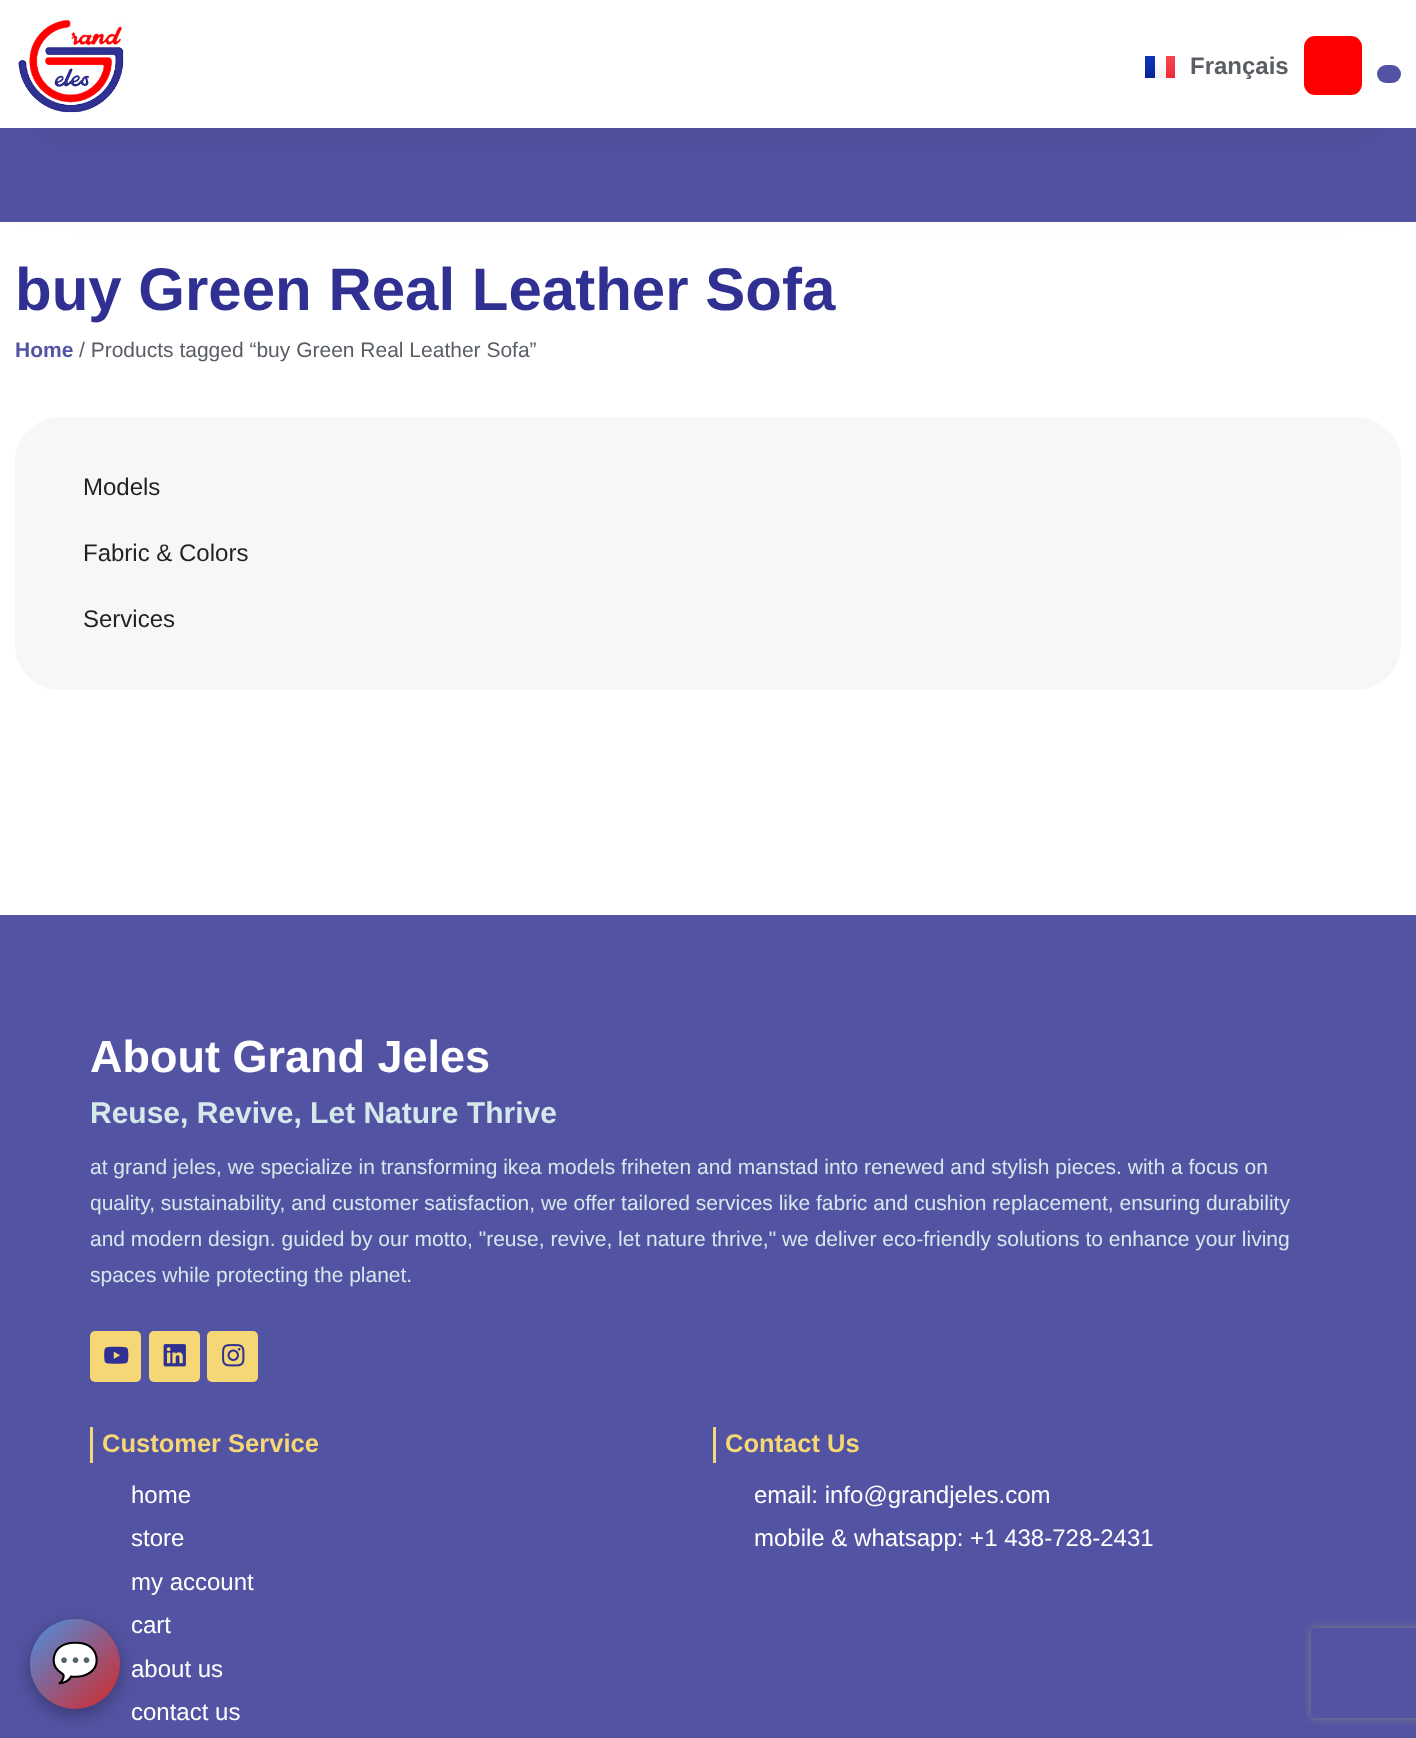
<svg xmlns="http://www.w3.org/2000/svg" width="1416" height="1738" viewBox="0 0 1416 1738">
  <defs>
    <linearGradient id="g1" gradientUnits="userSpaceOnUse" x1="1150" y1="56" x2="1150" y2="78"><stop offset="0" stop-color="rgb(16,53,187)"/><stop offset="1" stop-color="rgb(4,35,150)"/></linearGradient>
    <linearGradient id="g2" gradientUnits="userSpaceOnUse" x1="1160" y1="56" x2="1160" y2="78"><stop offset="0" stop-color="rgb(255,255,255)"/><stop offset="1" stop-color="rgb(240,240,240)"/></linearGradient>
    <linearGradient id="g3" gradientUnits="userSpaceOnUse" x1="1168" y1="56" x2="1168" y2="78"><stop offset="0" stop-color="rgb(244,70,83)"/><stop offset="1" stop-color="rgb(238,42,57)"/></linearGradient>
    <linearGradient id="g4" gradientUnits="userSpaceOnUse" x1="30" y1="1619" x2="120" y2="1709"><stop offset="0" stop-color="rgb(74,144,226)"/><stop offset="1" stop-color="rgb(214,40,40)"/></linearGradient>
    <clipPath id="clip1"><path d="M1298 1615H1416V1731H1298ZM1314 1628H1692C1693.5 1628 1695 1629.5 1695 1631V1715C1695 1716.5 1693.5 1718 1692 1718H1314C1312.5 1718 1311 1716.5 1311 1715V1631C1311 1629.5 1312.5 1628 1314 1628Z" clip-rule="evenodd"/></clipPath>
  </defs>
  <rect width="100%" height="100%" fill="rgb(255,255,255)"/>
  <rect x="0" y="128" width="1416" height="94" fill="rgb(82,83,164)"/>
  <rect x="0" y="30" width="1416" height="128" fill="rgba(0,0,0,0.05)" filter="blur(45px)"/>
  <rect x="0" y="0" width="1416" height="128" fill="rgb(255,255,255)"/>
  <image x="18" y="20" width="106" height="93" href="pic1.png"/>
  <rect x="1145" y="56" width="10" height="22" fill="url(#g1)"/>
  <rect x="1155" y="60" width="11" height="18" fill="url(#g2)"/>
  <rect x="1166" y="56" width="9" height="22" fill="url(#g3)"/>
  <text x="1190" y="74" font-family="Liberation Sans" font-size="24" font-weight="bold" fill="rgb(89,94,101)">Français</text>
  <rect x="1304" y="36" width="58" height="59" rx="11" fill="rgb(255,0,0)"/>
  <rect x="1377" y="65" width="24" height="18" rx="9" fill="rgb(82,83,164)"/>
  <text x="15" y="310" font-family="Liberation Sans" font-size="60" font-weight="bold" fill="rgb(47,48,145)">buy Green Real Leather Sofa</text>
  <text x="15" y="357" font-family="Liberation Sans" font-size="21" font-weight="bold" fill="rgb(82,83,164)">Home</text>
  <text x="79" y="357" font-family="Liberation Sans" font-size="21" fill="rgb(89,94,101)">/ Products tagged “buy Green Real Leather Sofa”</text>
  <rect x="15" y="417" width="1386" height="273" rx="45" fill="rgb(247,247,247)"/>
  <g font-family="Liberation Sans" font-size="24" fill="rgb(31,33,36)">
    <text x="83" y="495">Models</text>
    <text x="83" y="561">Fabric &amp; Colors</text>
    <text x="83" y="627">Services</text>
  </g>
  <rect x="0" y="915" width="1416" height="823" fill="rgb(83,83,164)"/>
  <rect x="30" y="1625" width="90" height="90" rx="45" fill="rgba(0,0,0,0.3)" filter="blur(9px)"/>
  <circle cx="75" cy="1664" r="45" fill="url(#g4)"/>
  <text x="51" y="1676" font-family="Noto Color Emoji" font-size="39" fill="rgb(255,255,255)">💬</text>
  <text x="90" y="1072" font-family="Liberation Sans" font-size="45" font-weight="bold" fill="rgb(255,255,255)">About Grand Jeles</text>
  <text x="90" y="1123" font-family="Liberation Sans" font-size="30" font-weight="bold" fill="rgb(211,233,235)">Reuse, Revive, Let Nature Thrive</text>
  <g font-family="Liberation Sans" font-size="21" fill="rgb(211,233,235)">
    <text>
      <tspan x="90" y="1174">at grand jeles, we specialize in transforming ikea models friheten and manstad into renewed and stylish pieces. with a focus on</tspan>
      <tspan x="90" y="1210">quality, sustainability, and customer satisfaction, we offer tailored services like fabric and cushion replacement, ensuring durability</tspan>
      <tspan x="90" y="1246">and modern design. guided by our motto, "reuse, revive, let nature thrive," we deliver eco-friendly solutions to enhance your living</tspan>
      <tspan x="90" y="1282">spaces while protecting the planet.</tspan>
    </text>
  </g>
  <rect x="90" y="1331" width="51" height="51" rx="5" fill="rgb(246,215,118)"/>
  <image x="104" y="1346" width="25" height="18" href="pic2.png"/>
  <rect x="149" y="1331" width="51" height="51" rx="5" fill="rgb(246,215,118)"/>
  <image x="163" y="1344" width="23" height="23" href="pic3.png"/>
  <rect x="207" y="1331" width="51" height="51" rx="5" fill="rgb(246,215,118)"/>
  <image x="222" y="1344" width="23" height="23" href="pic4.png"/>
  <rect x="90" y="1427" width="3" height="36" fill="rgb(246,215,118)"/>
  <text x="102" y="1452" font-family="Liberation Sans" font-size="25.5" font-weight="bold" fill="rgb(246,215,118)">Customer Service</text>
  <g font-family="Liberation Sans" font-size="24" fill="rgb(255,255,255)">
    <text>
      <tspan x="131" y="1503">home</tspan>
      <tspan x="131" y="1546">store</tspan>
      <tspan x="131" y="1590">my account</tspan>
      <tspan x="131" y="1633">cart</tspan>
      <tspan x="131" y="1677">about us</tspan>
      <tspan x="131" y="1720">contact us</tspan>
    </text>
  </g>
  <rect x="713" y="1427" width="3" height="36" fill="rgb(246,215,118)"/>
  <text x="725" y="1452" font-family="Liberation Sans" font-size="25.5" font-weight="bold" fill="rgb(246,215,118)">Contact Us</text>
  <g font-family="Liberation Sans" font-size="24" fill="rgb(255,255,255)">
    <text>
      <tspan x="754" y="1503">email: info@grandjeles.com</tspan>
      <tspan x="754" y="1546">mobile &amp; whatsapp: +1 438-728-2431</tspan>
    </text>
  </g>
  <g clip-path="url(#clip1)">
    <rect x="1311" y="1628" width="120" height="90" rx="3" fill="rgb(128,128,128)" filter="blur(4px)"/>
  </g>
</svg>
